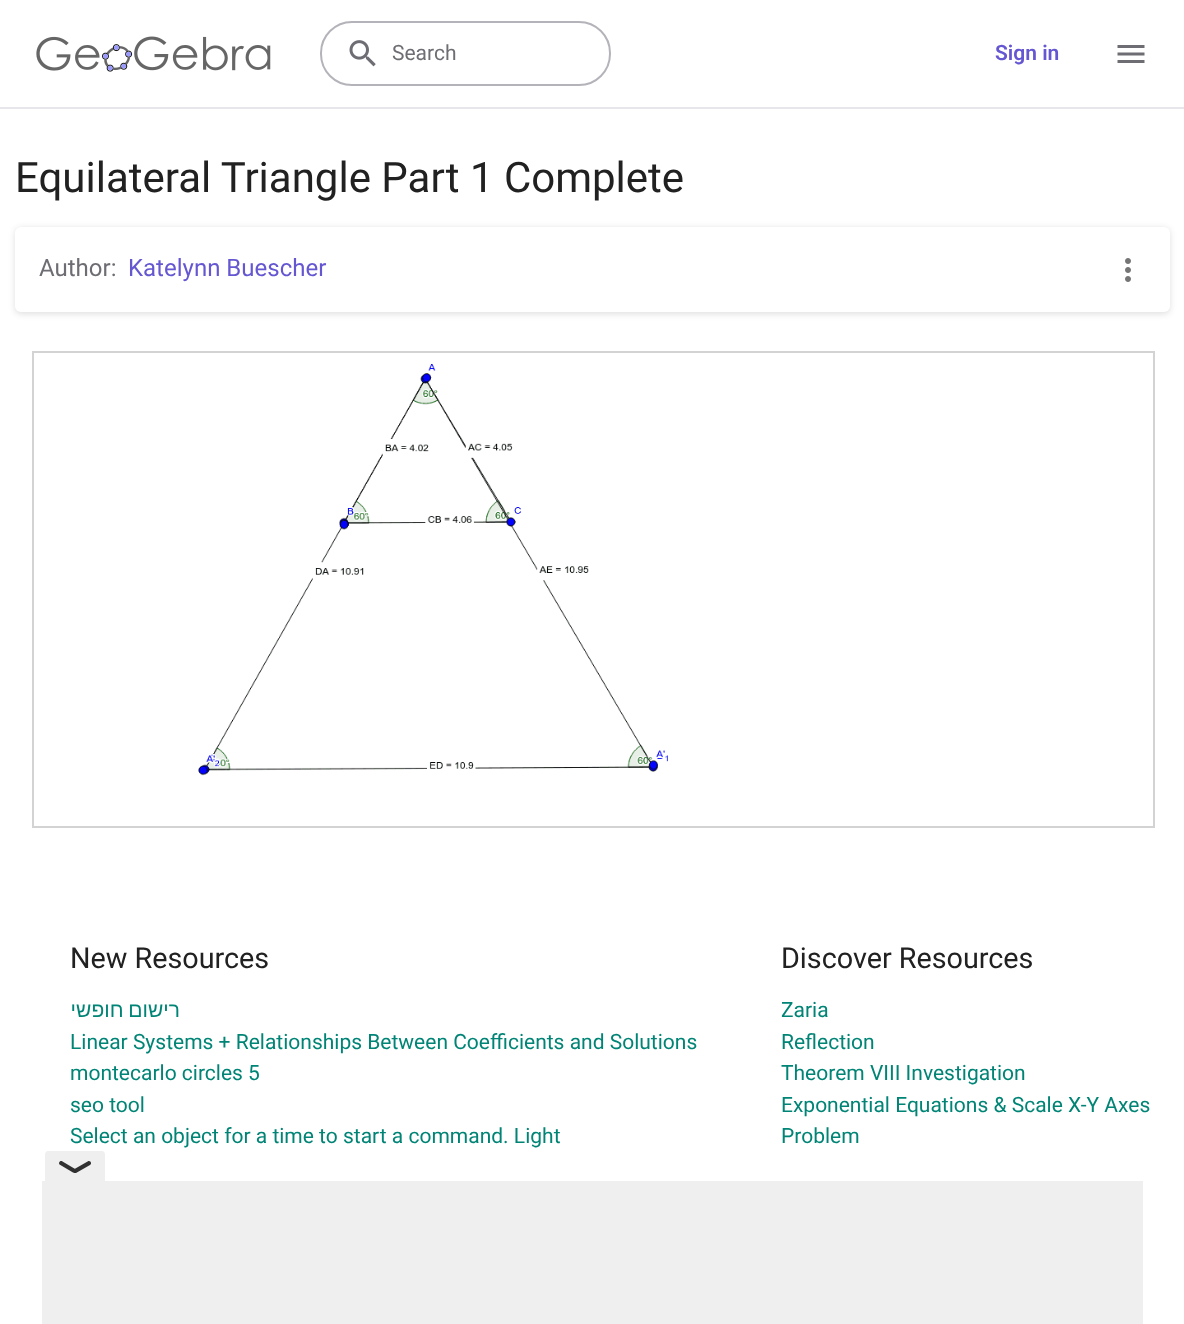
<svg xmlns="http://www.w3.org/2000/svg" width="1184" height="1324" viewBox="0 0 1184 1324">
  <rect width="100%" height="100%" fill="rgb(255,255,255)"/>
  <rect x="0" y="107" width="1184" height="2" fill="rgb(230,230,235)"/>
  <image x="36" y="36" width="235" height="36" href="pic1.png"/>
  <rect x="321" y="22" width="289" height="63" rx="31" fill="none" stroke="rgb(180,179,186)" stroke-width="2"/>
  <image x="349" y="40" width="27" height="27" href="pic2.png"/>
  <text x="392" y="60" font-family="Roboto" font-size="21" fill="rgb(110,109,115)">Search</text>
  <text x="995" y="60" font-family="Roboto" font-size="21" font-weight="600" fill="rgb(101,87,210)">Sign in</text>
  <image x="1117" y="45" width="28" height="18" href="pic3.png"/>
  <text x="15" y="192" font-family="Roboto" font-size="42" fill="rgb(33,33,33)">Equilateral Triangle Part 1 Complete</text>
  <rect x="15" y="228" width="1155" height="86" rx="6" fill="rgba(28,28,31,0.14)" filter="blur(3px)"/>
  <rect x="15" y="227" width="1155" height="85" rx="6" fill="rgb(255,255,255)"/>
  <text x="39" y="276" font-family="Roboto" font-size="24" fill="rgb(110,109,115)">Author:</text>
  <text x="128" y="276" font-family="Roboto" font-size="24" fill="rgb(101,87,210)">Katelynn Buescher</text>
  <image x="1125" y="258" width="6" height="24" href="pic4.png"/>
  <image x="198" y="364" width="470" height="412" href="pic5.png"/>
  <rect x="33" y="352" width="1121" height="475" fill="none" stroke="rgb(211,211,211)" stroke-width="2"/>
  <text x="70" y="968" font-family="Roboto" font-size="28.75" fill="rgb(33,33,33)">New Resources</text>
  <text x="180" y="1017" word-spacing="-1" font-family="Liberation Sans" font-size="21" direction="rtl" fill="rgb(0,132,117)">רישום חופשי</text>
  <g font-family="Roboto" font-size="21" fill="rgb(0,132,117)">
    <text>
      <tspan x="70" y="1049">Linear Systems + Relationships Between Coefficients and Solutions</tspan>
      <tspan x="70" y="1080">montecarlo circles 5</tspan>
      <tspan x="70" y="1112">seo tool</tspan>
      <tspan x="70" y="1143">Select an object for a time to start a command. Light</tspan>
    </text>
  </g>
  <text x="781" y="968" font-family="Roboto" font-size="28.75" fill="rgb(33,33,33)">Discover Resources</text>
  <g font-family="Roboto" font-size="21" fill="rgb(0,132,117)">
    <text>
      <tspan x="781" y="1017">Zaria</tspan>
      <tspan x="781" y="1049">Reflection</tspan>
      <tspan x="781" y="1080">Theorem VIII Investigation</tspan>
      <tspan x="781" y="1112">Exponential Equations &amp; Scale X-Y Axes</tspan>
      <tspan x="781" y="1143">Problem</tspan>
    </text>
  </g>
  <path d="M48 1151H102C103.5 1151 105 1152.5 105 1154V1181H45V1154C45 1152.5 46.5 1151 48 1151Z" fill="rgb(239,239,239)"/>
  <path d="M62.5 1161.5L76 1169.5C77.5 1171.5 75.5 1174 73 1172.5L59.5 1164.5C58 1162.5 60.5 1160 62.5 1161.5Z" fill="rgb(49,49,49)"/>
  <path d="M74.5 1169L88.5 1161C91 1160.5 92 1164 90 1165L76 1173C73.5 1173.5 72.5 1170 74.5 1169Z" fill="rgb(49,49,49)"/>
  <rect x="42" y="1181" width="1101" height="143" fill="rgb(239,239,239)"/>
</svg>
